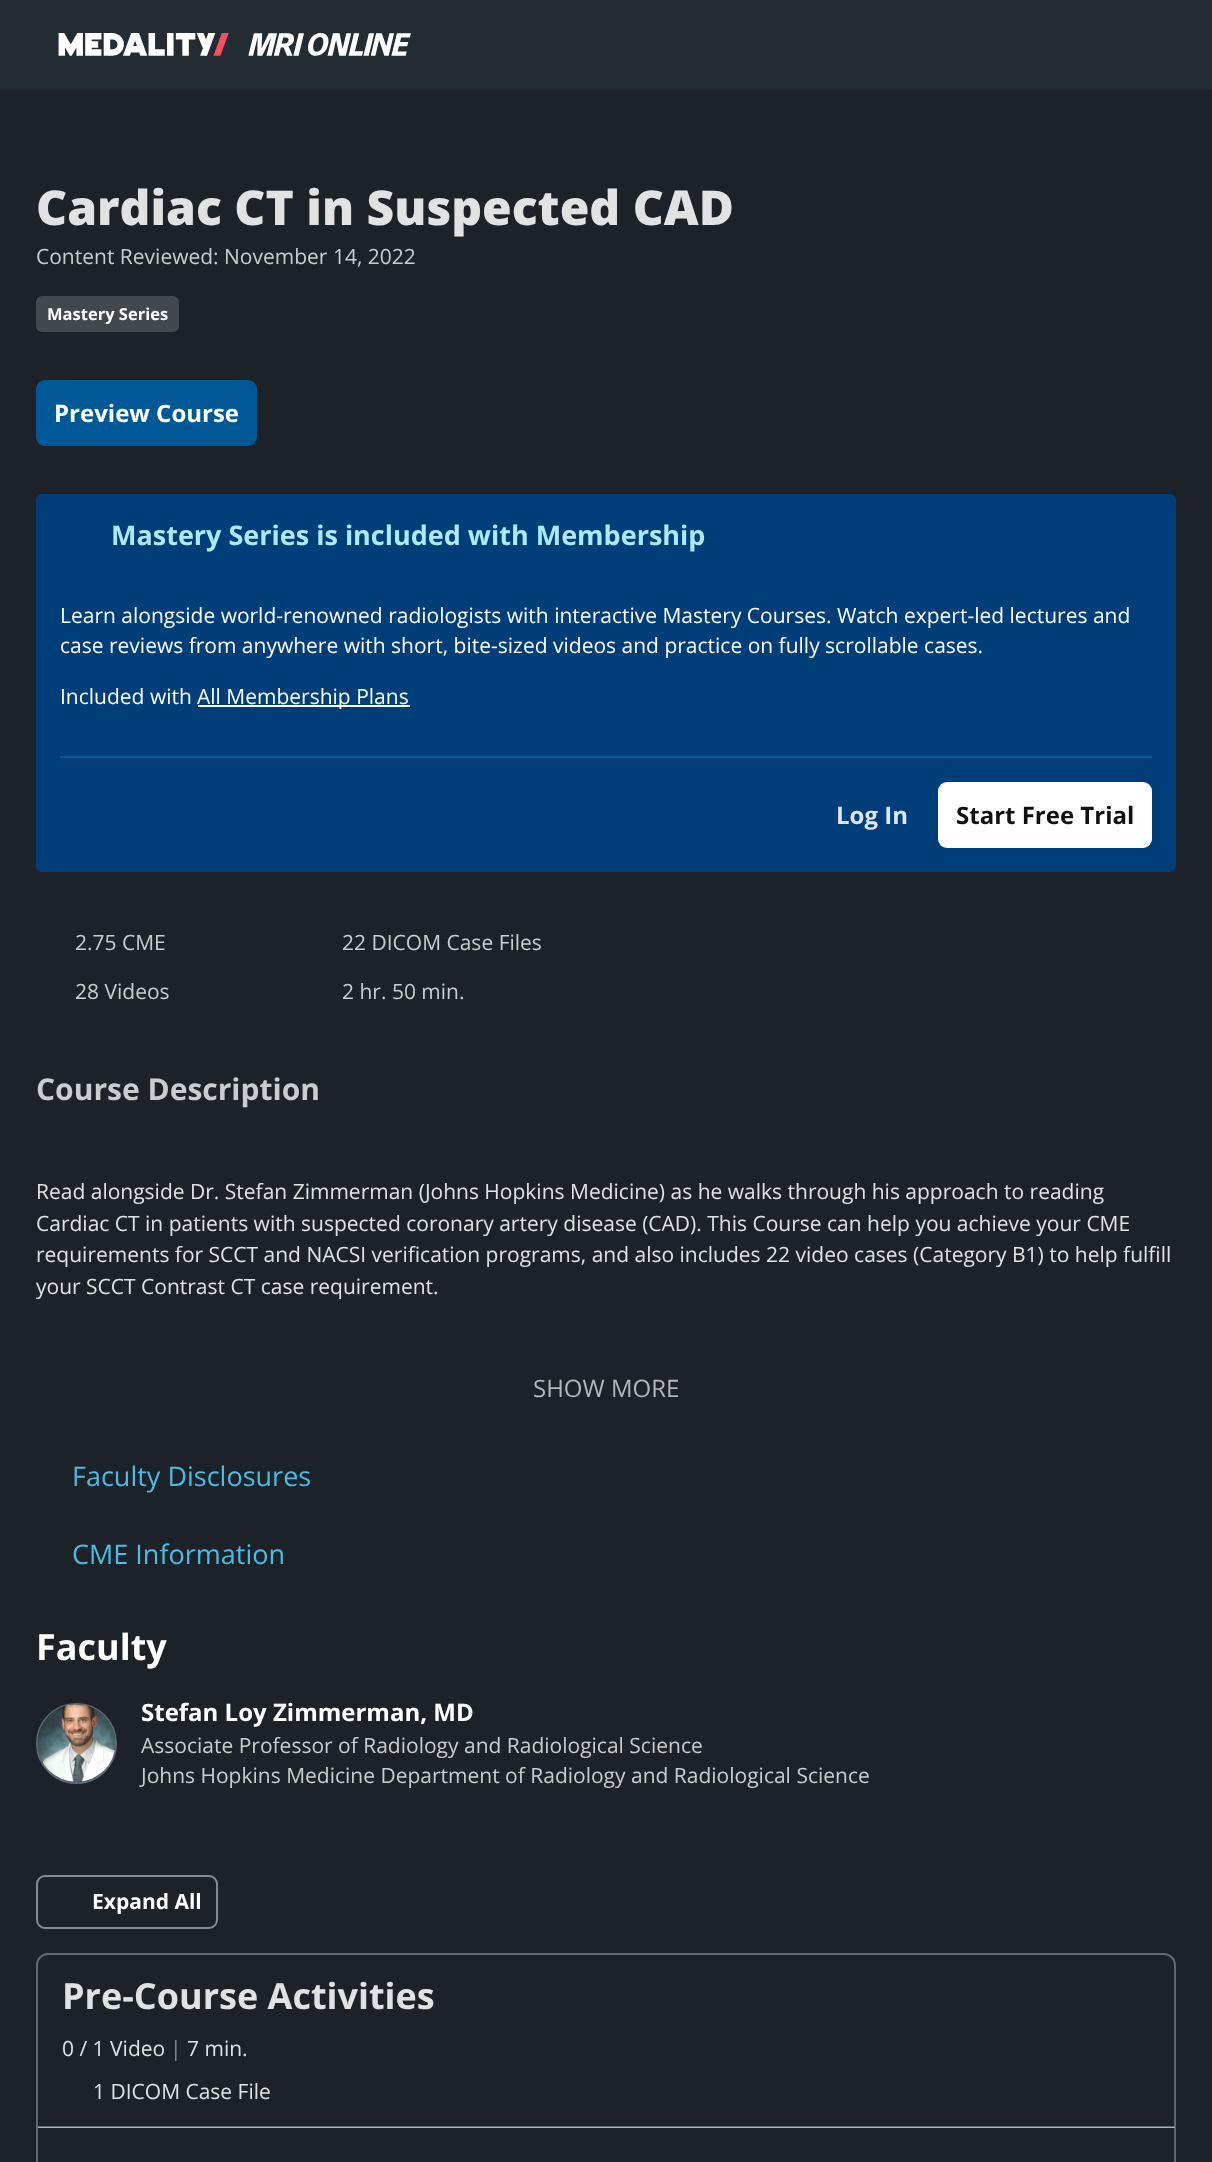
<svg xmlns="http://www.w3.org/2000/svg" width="1212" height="2162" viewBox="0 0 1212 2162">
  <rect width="100%" height="100%" fill="rgb(28,34,39)"/>
  <rect x="0" y="0" width="1212" height="90" fill="rgb(36,44,51)"/>
  <image x="58" y="33" width="353" height="23" href="pic1.png"/>
  <text x="36" y="225" font-family="Open Sans" font-size="48" font-weight="800" fill="rgb(225,226,227)">Cardiac CT in Suspected CAD</text>
  <text x="36" y="264" font-family="Open Sans" font-size="21" fill="rgb(203,204,205)">Content Reviewed: November 14, 2022</text>
  <rect x="36" y="296" width="143" height="36" rx="6" fill="rgb(67,72,76)"/>
  <text x="47" y="320" font-family="Open Sans" font-size="16.5" font-weight="bold" fill="rgb(255,255,255)">Mastery Series</text>
  <rect x="36" y="380" width="221" height="66" rx="9" fill="rgb(0,89,150)"/>
  <text x="54" y="422" font-family="Open Sans" font-size="24" font-weight="bold" fill="rgb(255,255,255)">Preview Course</text>
  <rect x="36" y="494" width="1140" height="378" rx="6" fill="rgb(0,62,122)"/>
  <text x="111" y="545" font-family="Open Sans" font-size="27" font-weight="bold" fill="rgb(173,233,247)">Mastery Series is included with Membership</text>
  <g font-family="Open Sans" font-size="21" fill="rgb(255,255,255)">
    <text>
      <tspan x="60" y="623">Learn alongside world-renowned radiologists with interactive Mastery Courses. Watch expert-led lectures and</tspan>
      <tspan x="60" y="653">case reviews from anywhere with short, bite-sized videos and practice on fully scrollable cases.</tspan>
    </text>
    <text x="60" y="704">Included with</text>
  </g>
  <rect x="198" y="705" width="212" height="2" fill="rgb(255,255,255)"/>
  <text x="197" y="704" font-family="Open Sans" font-size="21" fill="rgb(255,255,255)">All Membership Plans</text>
  <rect x="60" y="756" width="1092" height="2" fill="rgb(0,89,150)"/>
  <text x="836" y="824" font-family="Open Sans" font-size="24" font-weight="bold" fill="rgb(222,230,238)">Log In</text>
  <rect x="938" y="782" width="214" height="66" rx="9" fill="rgb(255,255,255)"/>
  <text x="956" y="824" font-family="Open Sans" font-size="24" font-weight="bold" fill="rgb(15,16,16)">Start Free Trial</text>
  <g font-family="Open Sans" font-size="21" fill="rgb(203,204,205)">
    <text x="75" y="950">2.75 CME</text>
    <text x="342" y="950">22 DICOM Case Files</text>
    <text x="75" y="999">28 Videos</text>
    <text x="342" y="999">2 hr. 50 min.</text>
  </g>
  <text x="36" y="1100" font-family="Open Sans" font-size="30" font-weight="bold" fill="rgb(203,204,205)">Course Description</text>
  <g font-family="Open Sans" font-size="21" fill="rgb(225,226,227)">
    <text>
      <tspan x="36" y="1199">Read alongside Dr. Stefan Zimmerman (Johns Hopkins Medicine) as he walks through his approach to reading</tspan>
      <tspan x="36" y="1231">Cardiac CT in patients with suspected coronary artery disease (CAD). This Course can help you achieve your CME</tspan>
      <tspan x="36" y="1262">requirements for SCCT and NACSI verification programs, and also includes 22 video cases (Category B1) to help fulfill</tspan>
      <tspan x="36" y="1294">your SCCT Contrast CT case requirement.</tspan>
    </text>
  </g>
  <text x="533" y="1397" font-family="Open Sans" font-size="24" fill="rgb(180,182,184)">SHOW MORE</text>
  <g font-family="Open Sans" font-size="27" fill="rgb(74,188,232)">
    <text x="72" y="1486">Faculty Disclosures</text>
    <text x="72" y="1564">CME Information</text>
  </g>
  <text x="36" y="1660" font-family="Open Sans" font-size="36" font-weight="bold" fill="rgb(255,255,255)">Faculty</text>
  <circle cx="76.5" cy="1743.5" r="39.5" fill="none" stroke="rgb(95,105,115)" stroke-width="2"/>
  <image x="37" y="1704" width="78" height="78" href="pic2.png"/>
  <text x="141" y="1721" font-family="Open Sans" font-size="24" font-weight="bold" fill="rgb(255,255,255)">Stefan Loy Zimmerman, MD</text>
  <g font-family="Open Sans" font-size="21" fill="rgb(203,204,205)">
    <text>
      <tspan x="141" y="1753">Associate Professor of Radiology and Radiological Science</tspan>
      <tspan x="141" y="1783">Johns Hopkins Medicine Department of Radiology and Radiological Science</tspan>
    </text>
  </g>
  <rect x="37" y="1876" width="180" height="52" rx="8" fill="none" stroke="rgb(135,138,141)" stroke-width="2"/>
  <text x="92" y="1909" font-family="Open Sans" font-size="21" font-weight="bold" fill="rgb(255,255,255)">Expand All</text>
  <rect x="37" y="1954" width="1138" height="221" rx="11" fill="none" stroke="rgb(95,105,115)" stroke-width="2"/>
  <rect x="38" y="2126" width="1137" height="1" fill="rgb(95,105,115)"/>
  <text x="62" y="2009" font-family="Open Sans" font-size="36" font-weight="bold" fill="rgb(225,226,227)">Pre-Course Activities</text>
  <text x="62" y="2056" font-family="Open Sans" font-size="21" fill="rgb(225,226,227)">0 / 1 Video</text>
  <text x="170" y="2056" font-family="Open Sans" font-size="21" fill="rgb(135,138,141)">|</text>
  <g font-family="Open Sans" font-size="21" fill="rgb(225,226,227)">
    <text x="187" y="2056">7 min.</text>
    <text x="93" y="2099">1 DICOM Case File</text>
  </g>
  <rect x="38" y="2127" width="1137" height="1" fill="rgb(170,176,181)"/>
</svg>
